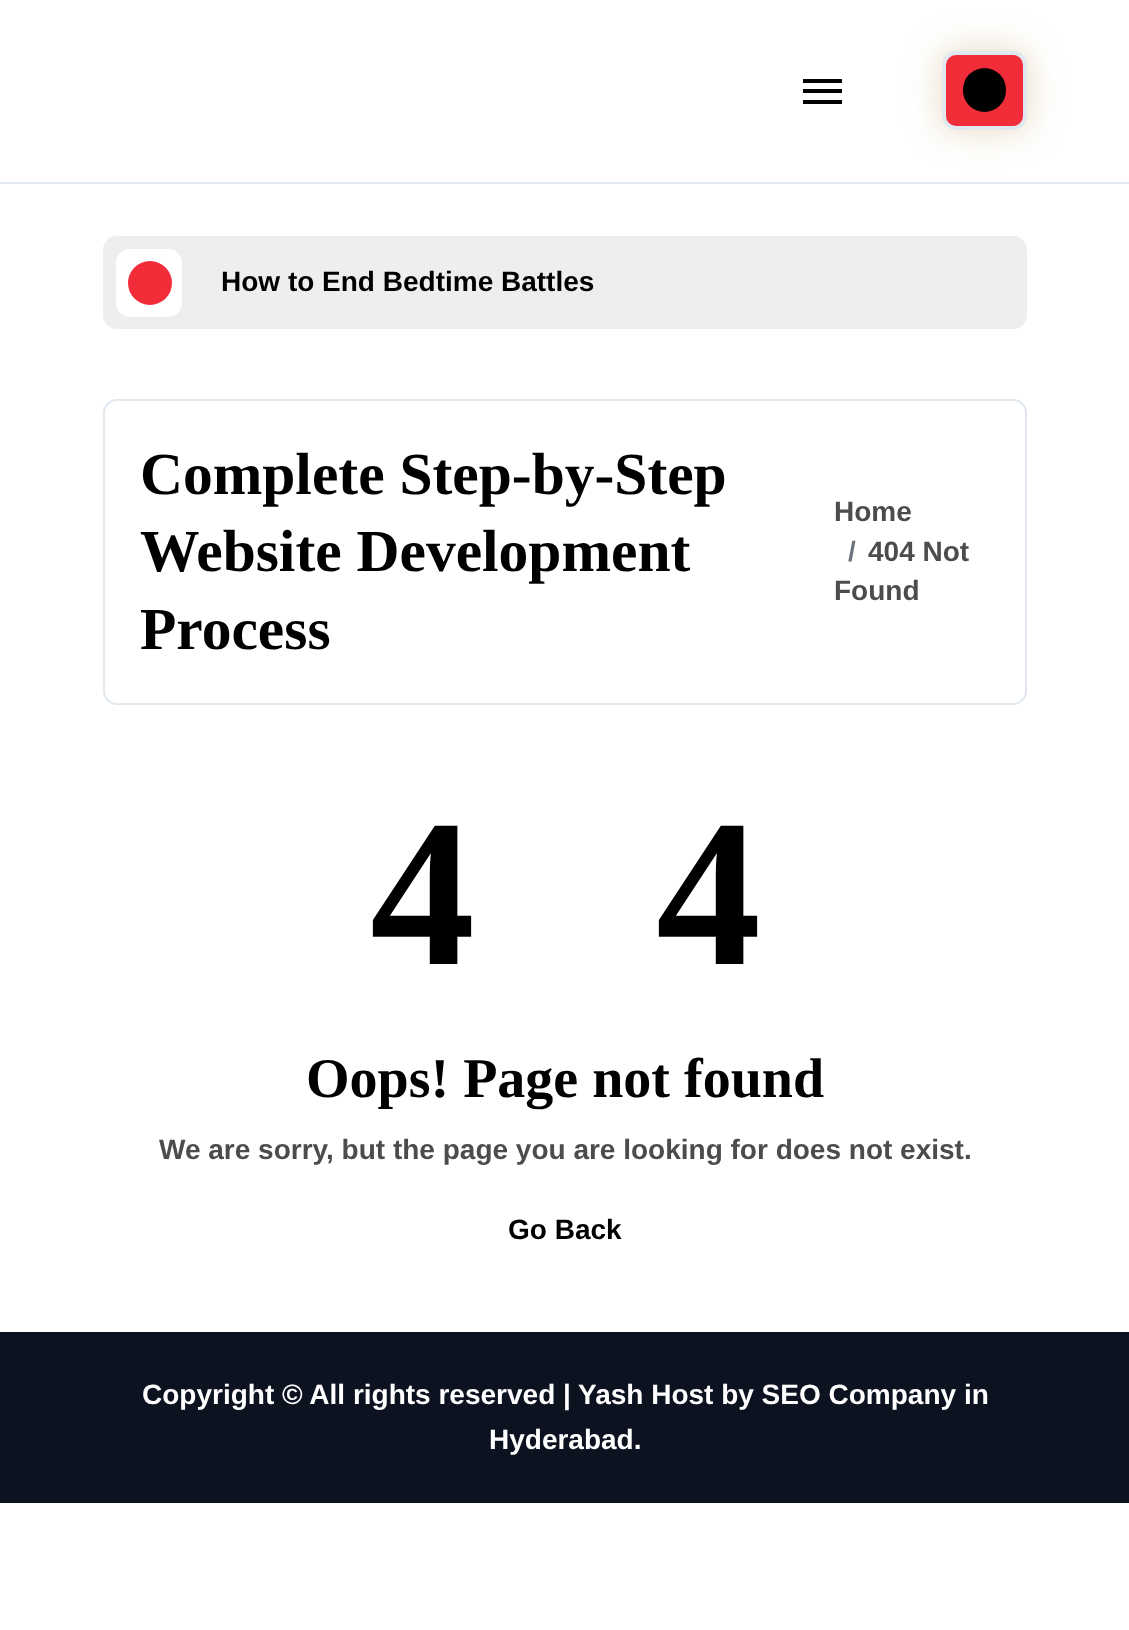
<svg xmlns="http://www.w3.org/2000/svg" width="1129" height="1630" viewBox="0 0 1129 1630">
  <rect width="100%" height="100%" fill="rgb(255,255,255)"/>
  <rect x="0" y="182" width="1129" height="2" fill="rgb(226,232,240)"/>
  <rect x="803" y="79" width="39" height="4" fill="rgb(0,0,0)"/>
  <rect x="803" y="89" width="39" height="4" fill="rgb(0,0,0)"/>
  <rect x="803" y="100" width="39" height="4" fill="rgb(0,0,0)"/>
  <rect x="942" y="51" width="85" height="79" rx="14" fill="rgba(193,163,98,0.4)" filter="blur(17.5px)"/>
  <rect x="944" y="53" width="81" height="75" rx="12" fill="rgb(242,45,58)" stroke="rgb(226,232,240)" stroke-width="4"/>
  <rect x="963" y="68" width="43" height="44" rx="21.5" fill="rgb(0,0,0)"/>
  <rect x="103" y="236" width="924" height="93" rx="14" fill="rgb(238,238,238)"/>
  <rect x="116" y="249" width="66" height="68" rx="14" fill="rgb(255,255,255)"/>
  <circle cx="150" cy="283" r="22" fill="rgb(242,45,58)"/>
  <text x="221" y="291" font-family="Liberation Sans" font-size="28" font-weight="bold" fill="rgb(0,0,0)">How to End Bedtime Battles</text>
  <rect x="104" y="400" width="922" height="304" rx="13" fill="none" stroke="rgb(226,232,240)" stroke-width="2"/>
  <g font-family="Liberation Serif" font-size="59.5" font-weight="bold" fill="rgb(0,0,0)">
    <text>
      <tspan x="140" y="494">Complete Step-by-Step</tspan>
      <tspan x="140" y="571">Website Development</tspan>
      <tspan x="140" y="649">Process</tspan>
    </text>
  </g>
  <text x="834" y="521" font-family="Liberation Sans" font-size="28" font-weight="bold" fill="rgb(76,76,76)">Home</text>
  <text x="848" y="561" font-family="Liberation Sans" font-size="28" font-weight="bold" fill="rgb(108,117,125)">/</text>
  <g font-family="Liberation Sans" font-size="28" font-weight="bold" fill="rgb(76,76,76)">
    <text x="868" y="561">404 Not</text>
    <text x="834" y="600">Found</text>
  </g>
  <g font-family="Liberation Serif" font-size="210" font-weight="bold" fill="rgb(0,0,0)">
    <text x="370" y="964">4</text>
    <text x="656" y="964">4</text>
  </g>
  <text x="306" y="1097" font-family="Liberation Serif" font-size="56" font-weight="bold" fill="rgb(0,0,0)">Oops! Page not found</text>
  <text x="159" y="1159" font-family="Liberation Sans" font-size="28" font-weight="bold" fill="rgb(76,76,76)">We are sorry, but the page you are looking for does not exist.</text>
  <text x="508" y="1239" font-family="Liberation Sans" font-size="28" font-weight="bold" fill="rgb(0,0,0)">Go Back</text>
  <rect x="0" y="1332" width="1129" height="171" fill="rgb(13,18,33)"/>
  <g font-family="Liberation Sans" font-size="28" font-weight="bold" fill="rgb(255,255,255)">
    <text x="142" y="1404">Copyright © All rights reserved |</text>
    <text x="578" y="1404">Yash Host by SEO Company in</text>
    <text x="489" y="1449">Hyderabad.</text>
  </g>
</svg>
